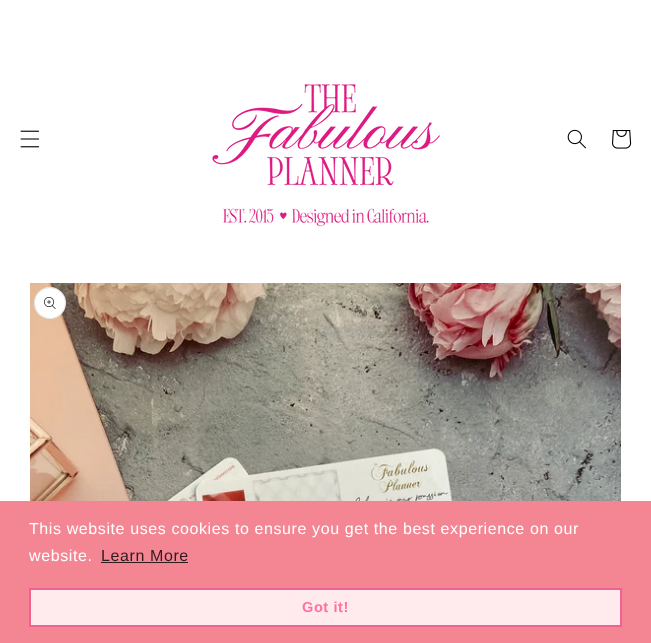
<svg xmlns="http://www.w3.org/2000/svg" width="651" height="643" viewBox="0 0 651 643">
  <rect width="100%" height="100%" fill="rgb(255,255,255)"/>
  <image x="20" y="130" width="20" height="18" href="pic1.png"/>
  <image x="212" y="84" width="228" height="143" href="pic2.png"/>
  <image x="567" y="129" width="19" height="20" href="pic3.png"/>
  <image x="612" y="130" width="20" height="19" href="pic4.png"/>
  <image x="30" y="283" width="591" height="218" href="pic5.png"/>
  <circle cx="50" cy="303" r="16" fill="rgb(255,255,255)"/>
  <circle cx="50" cy="303" r="15.5" fill="none" stroke="rgba(0,0,0,0.1)"/>
  <image x="44" y="297" width="12" height="12" href="pic6.png"/>
  <rect x="0" y="501" width="651" height="142" fill="rgb(244,133,146)"/>
  <g font-family="Liberation Sans" font-size="16" letter-spacing="0.6" fill="rgb(255,255,255)">
    <text>
      <tspan x="29" y="534">This website uses cookies to ensure you get the best experience on our</tspan>
      <tspan x="29" y="561">website.</tspan>
    </text>
  </g>
  <text x="101" y="561" font-family="Liberation Sans" font-size="16" letter-spacing="0.6" fill="rgb(49,27,29)">Learn More</text>
  <rect x="101" y="562" width="87" height="1" fill="rgb(49,27,29)"/>
  <rect x="30" y="589" width="591" height="37" fill="rgb(255,235,238)" stroke="rgb(240,98,146)" stroke-width="2"/>
  <text x="302" y="612" font-family="Liberation Sans" font-size="14.5" font-weight="bold" letter-spacing="0.6" fill="rgb(255,112,163)">Got it!</text>
</svg>
